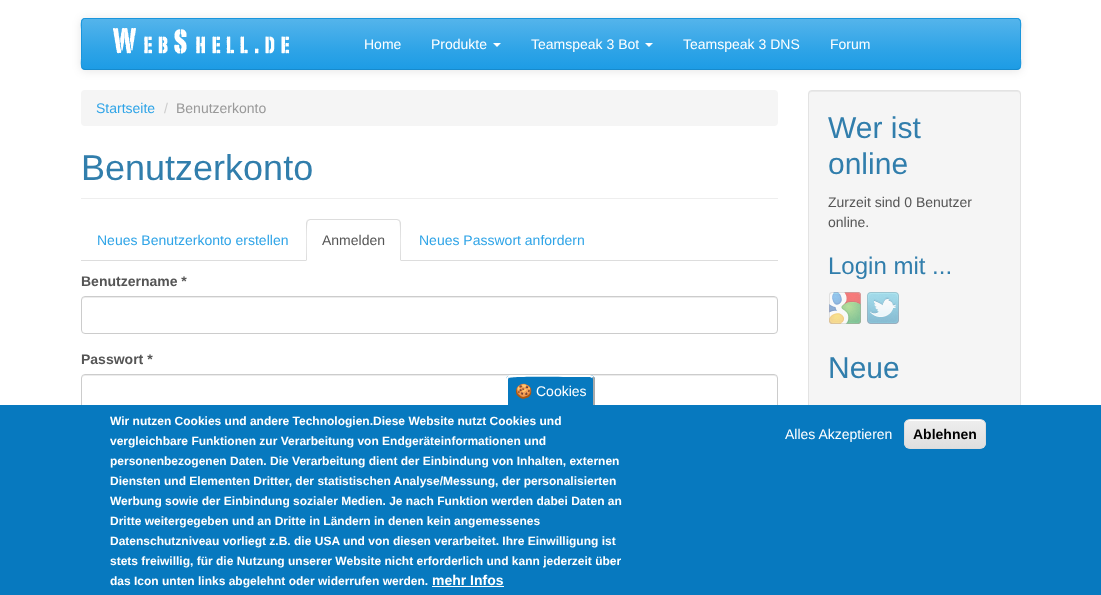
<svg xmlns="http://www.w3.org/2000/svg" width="1101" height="595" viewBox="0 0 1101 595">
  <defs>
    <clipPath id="clip1"><rect x="81" y="18" width="940" height="52" rx="4"/></clipPath>
    <linearGradient id="g1" gradientUnits="userSpaceOnUse" x1="551" y1="19" x2="551" y2="69"><stop offset="0" stop-color="rgb(84,180,235)"/><stop offset="0.6" stop-color="rgb(47,164,231)"/><stop offset="1" stop-color="rgb(29,156,229)"/></linearGradient>
    <clipPath id="clip2"><rect x="904" y="419" width="82" height="30" rx="6"/></clipPath>
    <linearGradient id="g2" gradientUnits="userSpaceOnUse" x1="945" y1="420" x2="945" y2="448"><stop offset="0.05" stop-color="rgb(237,237,237)"/><stop offset="1" stop-color="rgb(223,223,223)"/></linearGradient>
  </defs>
  <rect width="100%" height="100%" fill="rgb(255,255,255)"/>
  <rect x="81" y="19" width="940" height="52" rx="4" fill="rgba(0,0,0,0.1)" filter="blur(5px)"/>
  <rect x="81" y="18" width="940" height="52" rx="4" fill="rgb(47,164,231)"/>
  <g clip-path="url(#clip1)">
    <rect x="82" y="19" width="938" height="50" fill="url(#g1)"/>
  </g>
  <path d="M1019.5 68.5L1017 69.5H85L82.5 68.5" fill="none" stroke="rgb(23,138,204)"/>
  <path d="M82.5 68.5C80.5 66.5 81.5 60 81.5 58.5V29.5C81.5 27 80 19 84.5 18.5H1017.5C1022 19 1020.5 27 1020.5 29.5V58.5C1020.5 60 1021.5 66.5 1019.5 68.5" fill="none" stroke="rgb(25,149,220)"/>
  <image x="113" y="28" width="177" height="26" href="pic1.png"/>
  <g font-family="Liberation Sans" font-size="14" fill="rgb(255,255,255)">
    <text x="364" y="49">Home</text>
    <text x="431" y="49">Produkte</text>
  </g>
  <path d="M493 43H501L497 47Z" fill="rgb(255,255,255)"/>
  <text x="531" y="49" font-family="Liberation Sans" font-size="14" fill="rgb(255,255,255)">Teamspeak 3 Bot</text>
  <path d="M645 43H653L649 47Z" fill="rgb(255,255,255)"/>
  <g font-family="Liberation Sans" font-size="14" fill="rgb(255,255,255)">
    <text x="683" y="49">Teamspeak 3 DNS</text>
    <text x="830" y="49">Forum</text>
  </g>
  <rect x="81" y="90" width="697" height="36" rx="4" fill="rgb(245,245,245)"/>
  <text x="96" y="113" font-family="Liberation Sans" font-size="14" fill="rgb(47,164,231)">Startseite</text>
  <text x="164" y="113" font-family="Liberation Sans" font-size="14" fill="rgb(204,204,204)">/</text>
  <text x="176" y="113" font-family="Liberation Sans" font-size="14" fill="rgb(153,153,153)">Benutzerkonto</text>
  <rect x="81" y="198" width="697" height="1" fill="rgb(238,238,238)"/>
  <text x="81" y="180" font-family="Liberation Sans" font-size="36" fill="rgb(49,126,172)">Benutzerkonto</text>
  <rect x="81" y="260" width="697" height="1" fill="rgb(221,221,221)"/>
  <text x="97" y="245" font-family="Liberation Sans" font-size="14" fill="rgb(47,164,231)">Neues Benutzerkonto erstellen</text>
  <path d="M310 219H397C399 219 401 221 401 223V261H306V223C306 221 308 219 310 219Z" fill="rgb(255,255,255)"/>
  <path d="M310 219L307 220L308 221L310 220H397L399 221L400 220L397 219Z" fill="rgb(221,221,221)"/>
  <path d="M401 261V223C401 222 400 221 400 220L399 221C401 223 400 255 400 260Z" fill="rgb(221,221,221)"/>
  <path d="M306 261L307 260C307 255 306 223 308 221L307 220L306 223Z" fill="rgb(221,221,221)"/>
  <text x="322" y="245" font-family="Liberation Sans" font-size="14" fill="rgb(85,85,85)">Anmelden</text>
  <text x="419" y="245" font-family="Liberation Sans" font-size="14" fill="rgb(47,164,231)">Neues Passwort anfordern</text>
  <text x="81" y="286" font-family="Liberation Sans" font-size="14" font-weight="bold" fill="rgb(85,85,85)">Benutzername *</text>
  <path d="M85 298H774C776 298 777 299 777 301C777 299 776 297 774 297H85C83 297 82 299 82 301C82 299 83 298 85 298Z" fill="rgb(236,236,236)"/>
  <rect x="81.5" y="296.5" width="696" height="37" rx="3.5" fill="none" stroke="rgb(204,204,204)"/>
  <text x="81" y="364" font-family="Liberation Sans" font-size="14" font-weight="bold" fill="rgb(85,85,85)">Passwort *</text>
  <path d="M85 376H774C776 376 777 377 777 379C777 377 776 375 774 375H85C83 375 82 377 82 379C82 377 83 376 85 376Z" fill="rgb(236,236,236)"/>
  <rect x="81.5" y="374.5" width="696" height="37" rx="3.5" fill="none" stroke="rgb(204,204,204)"/>
  <rect x="808" y="90" width="213" height="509" rx="4" fill="rgb(245,245,245)"/>
  <path d="M812 92H1017C1019 92 1020 93 1020 95V94C1020 92 1019 91 1017 91H812C810 91 809 92 809 94V95C809 93 810 92 812 92Z" fill="rgb(233,233,233)"/>
  <rect x="808.5" y="90.5" width="212" height="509" rx="3.5" fill="none" stroke="rgb(227,227,227)"/>
  <g font-family="Liberation Sans" font-size="30" fill="rgb(49,126,172)">
    <text>
      <tspan x="828" y="138">Wer ist</tspan>
      <tspan x="828" y="174">online</tspan>
    </text>
  </g>
  <g font-family="Liberation Sans" font-size="14" fill="rgb(85,85,85)">
    <text>
      <tspan x="828" y="207">Zurzeit sind 0 Benutzer</tspan>
      <tspan x="828" y="227">online.</tspan>
    </text>
  </g>
  <text x="828" y="274" font-family="Liberation Sans" font-size="24" fill="rgb(49,126,172)">Login mit ...</text>
  <image x="829" y="292" width="32" height="32" href="pic2.png"/>
  <image x="867" y="292" width="32" height="32" href="pic3.png"/>
  <text x="828" y="378" font-family="Liberation Sans" font-size="30" fill="rgb(49,126,172)">Neue</text>
  <rect x="0" y="405" width="1101" height="190" fill="rgb(7,121,191)"/>
  <path d="M511 375H590C593 375 595 377 595 380V405H506V380C506 377 508 375 511 375Z" fill="rgb(7,121,191)"/>
  <path d="M511 375C510 375 508 375 507 376L509 378C511 376 569 377 577 377H590L592 378L594 376C593 376 592 375 590 375Z" fill="rgb(255,255,255)"/>
  <path d="M593 405H595V380C595 378.5 594.5 377.5 593.5 376.5L592.5 378C593 378.5 593 379 593 380Z" fill="rgb(170,170,170)"/>
  <path d="M506 405V379C506 378 506.5 377 507.5 376.5L509 377.5C508.5 378 508 379 508 380V405Z" fill="rgb(255,255,255)"/>
  <text x="515" y="396" font-family="Noto Color Emoji" font-size="14" fill="rgb(255,255,255)">🍪</text>
  <text x="536" y="396" font-family="Liberation Sans" font-size="14" fill="rgb(255,255,255)">Cookies</text>
  <g font-family="Liberation Sans" font-size="12" font-weight="bold" fill="rgb(255,255,255)">
    <text>
      <tspan x="110" y="425">Wir nutzen Cookies und andere Technologien.Diese Website nutzt Cookies und</tspan>
      <tspan x="110" y="445">vergleichbare Funktionen zur Verarbeitung von Endgeräteinformationen und</tspan>
      <tspan x="110" y="465">personenbezogenen Daten. Die Verarbeitung dient der Einbindung von Inhalten, externen</tspan>
      <tspan x="110" y="485">Diensten und Elementen Dritter, der statistischen Analyse/Messung, der personalisierten</tspan>
      <tspan x="110" y="505">Werbung sowie der Einbindung sozialer Medien. Je nach Funktion werden dabei Daten an</tspan>
      <tspan x="110" y="525">Dritte weitergegeben und an Dritte in Ländern in denen kein angemessenes</tspan>
      <tspan x="110" y="545">Datenschutzniveau vorliegt z.B. die USA und von diesen verarbeitet. Ihre Einwilligung ist</tspan>
      <tspan x="110" y="565">stets freiwillig, für die Nutzung unserer Website nicht erforderlich und kann jederzeit über</tspan>
      <tspan x="110" y="585">das Icon unten links abgelehnt oder widerrufen werden.</tspan>
    </text>
  </g>
  <text x="432" y="585" font-family="Liberation Sans" font-size="14" font-weight="bold" fill="rgb(255,255,255)">mehr Infos</text>
  <rect x="432" y="586" width="72" height="1" fill="rgb(255,255,255)"/>
  <text x="785" y="439" font-family="Liberation Sans" font-size="14" fill="rgb(255,255,255)">Alles Akzeptieren</text>
  <g clip-path="url(#clip2)">
    <rect x="904" y="420" width="82" height="28" fill="url(#g2)"/>
  </g>
  <path d="M910 421H980C983 421 985 423 985 426C985 417 974 420 968 420H922C916 420 905 417 905 426C905 423 907 421 910 421Z" fill="rgb(255,255,255)"/>
  <rect x="904.5" y="419.5" width="81" height="29" rx="5.5" fill="none" stroke="rgb(220,220,220)"/>
  <text x="913" y="439" font-family="Liberation Sans" font-size="14" font-weight="bold" fill="rgb(0,0,0)">Ablehnen</text>
</svg>
